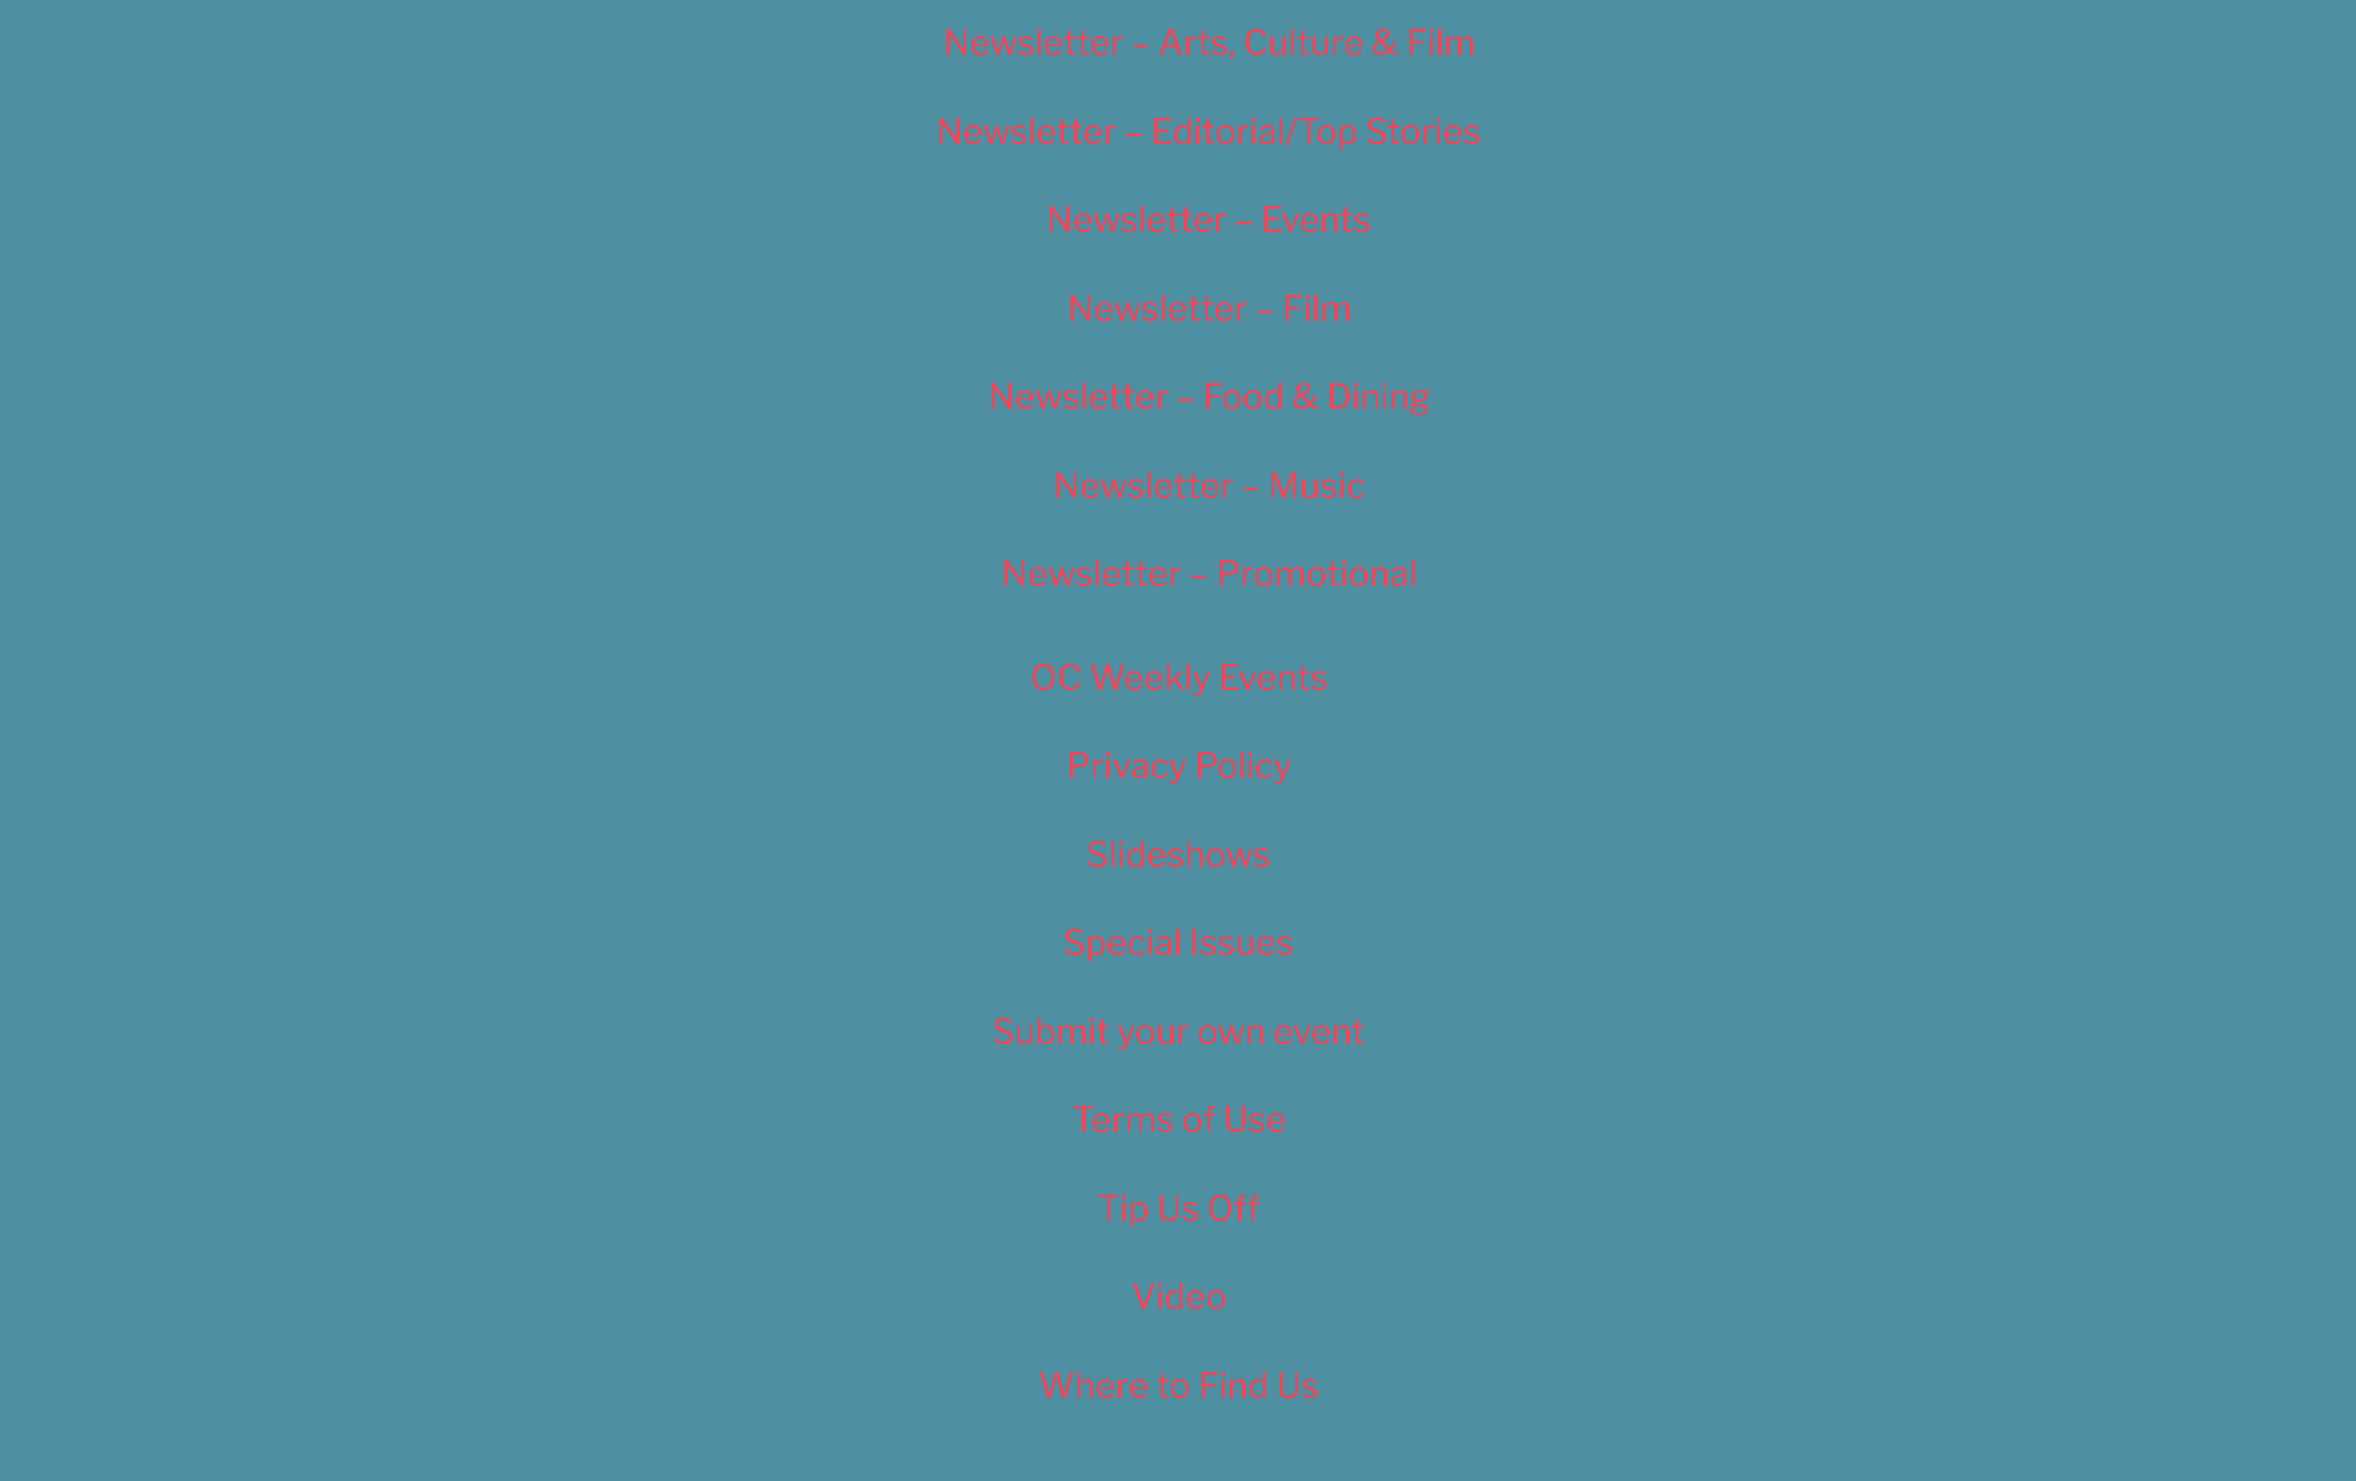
<svg xmlns="http://www.w3.org/2000/svg" width="2356" height="1481" viewBox="0 0 2356 1481">
  <rect width="100%" height="100%" fill="rgb(79,143,162)"/>
  <g font-family="Libre Franklin" font-size="35" font-weight="100" fill="rgb(243,68,88)">
    <text x="943" y="55">Newsletter – Arts, Culture &amp; Film</text>
    <text x="936" y="144">Newsletter – Editorial/Top Stories</text>
    <text x="1046" y="232">Newsletter – Events</text>
    <text x="1067" y="321">Newsletter – Film</text>
    <text x="988" y="409">Newsletter – Food &amp; Dining</text>
    <text x="1053" y="498">Newsletter – Music</text>
    <text x="1001" y="586">Newsletter – Promotional</text>
    <text x="1030" y="690">OC Weekly Events</text>
    <text x="1066" y="778">Privacy Policy</text>
    <text x="1086" y="867">Slideshows</text>
    <text x="1063" y="955">Special Issues</text>
    <text x="992" y="1044">Submit your own event</text>
    <text x="1072" y="1132">Terms of Use</text>
    <text x="1097" y="1221">Tip Us Off</text>
    <text x="1131" y="1309">Video</text>
    <text x="1038" y="1398">Where to Find Us</text>
  </g>
</svg>
